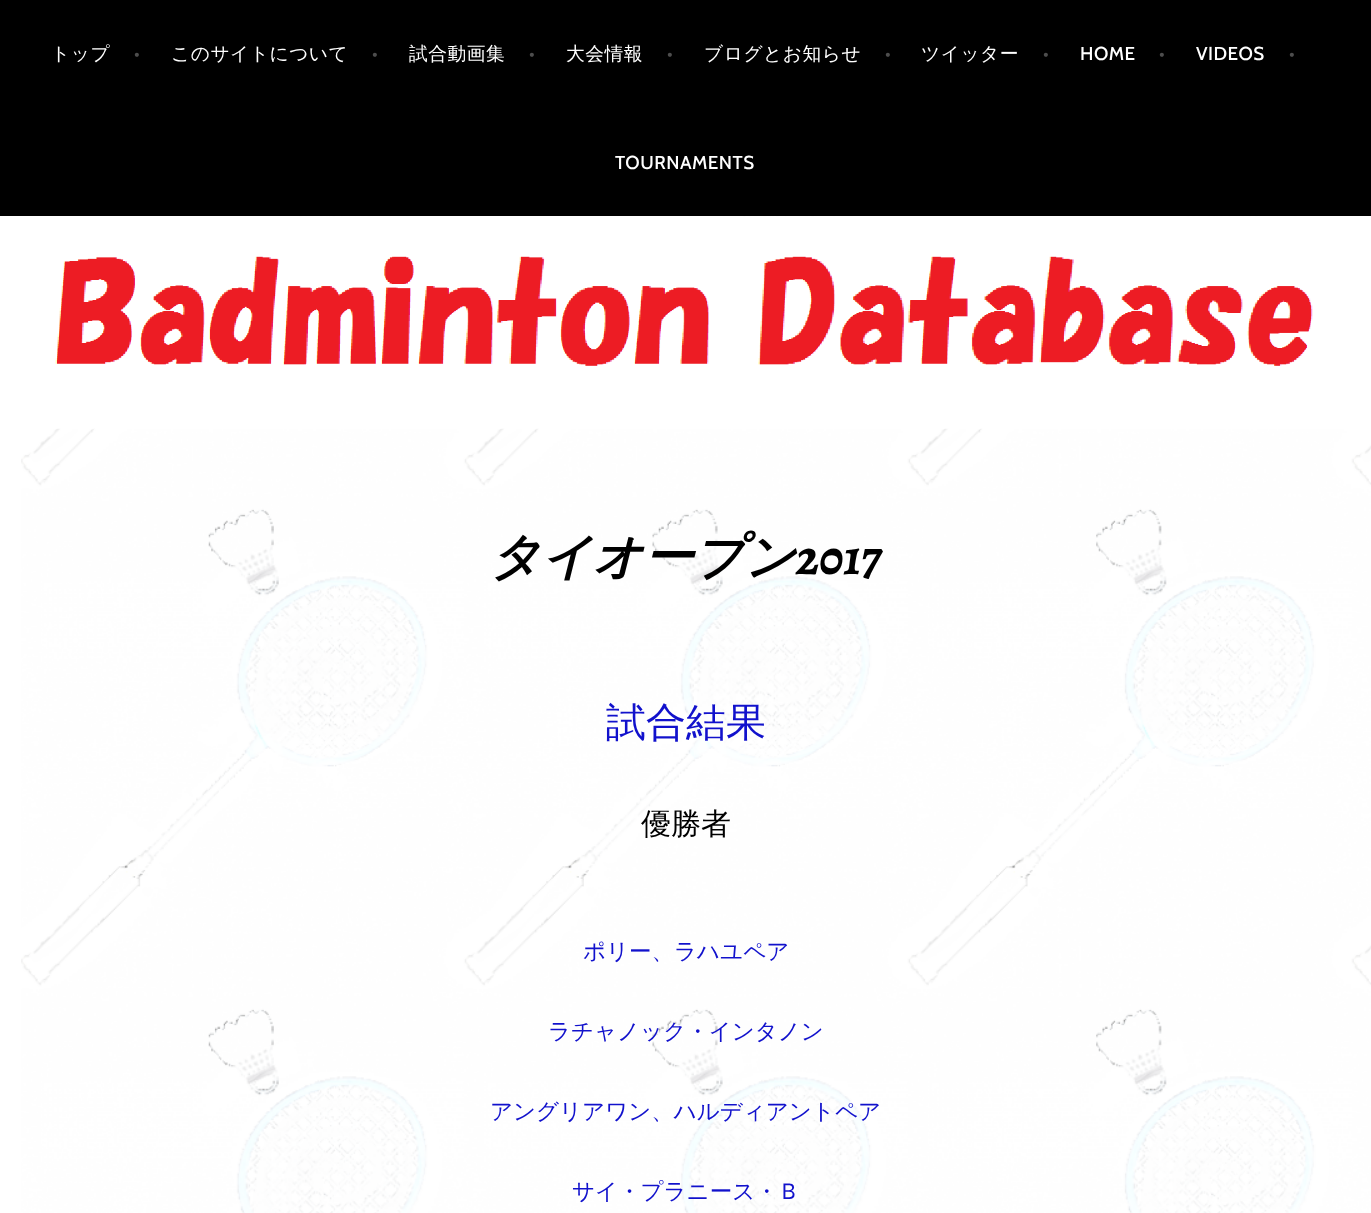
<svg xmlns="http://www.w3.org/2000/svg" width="1371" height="1213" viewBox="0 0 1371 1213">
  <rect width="100%" height="100%" fill="rgb(255,255,255)"/>
  <image x="21" y="216" width="1350" height="997" href="pic1.png"/>
  <rect x="0" y="0" width="1371" height="216" fill="rgb(0,0,0)"/>
  <text x="51" y="60" font-family="WenQuanYi Zen Hei" font-size="18.75" font-weight="500" letter-spacing="0.5" fill="rgb(255,255,255)">トップ</text>
  <text x="134" y="60" font-family="Cabin" font-size="18.75" font-weight="500" letter-spacing="0.5" fill="rgb(77,77,77)">•</text>
  <text x="171" y="60" font-family="WenQuanYi Zen Hei" font-size="18.75" font-weight="500" letter-spacing="0.5" fill="rgb(255,255,255)">このサイトについて</text>
  <text x="372" y="60" font-family="Cabin" font-size="18.75" font-weight="500" letter-spacing="0.5" fill="rgb(77,77,77)">•</text>
  <text x="409" y="60" font-family="WenQuanYi Zen Hei" font-size="18.75" font-weight="500" letter-spacing="0.5" fill="rgb(255,255,255)">試合動画集</text>
  <text x="529" y="60" font-family="Cabin" font-size="18.75" font-weight="500" letter-spacing="0.5" fill="rgb(77,77,77)">•</text>
  <text x="566" y="60" font-family="WenQuanYi Zen Hei" font-size="18.75" font-weight="500" letter-spacing="0.5" fill="rgb(255,255,255)">大会情報</text>
  <text x="667" y="60" font-family="Cabin" font-size="18.75" font-weight="500" letter-spacing="0.5" fill="rgb(77,77,77)">•</text>
  <text x="704" y="60" font-family="WenQuanYi Zen Hei" font-size="18.75" font-weight="500" letter-spacing="0.5" fill="rgb(255,255,255)">ブログとお知らせ</text>
  <text x="885" y="60" font-family="Cabin" font-size="18.75" font-weight="500" letter-spacing="0.5" fill="rgb(77,77,77)">•</text>
  <text x="921" y="60" font-family="WenQuanYi Zen Hei" font-size="18.75" font-weight="500" letter-spacing="0.5" fill="rgb(255,255,255)">ツイッター</text>
  <text x="1043" y="60" font-family="Cabin" font-size="18.75" font-weight="500" letter-spacing="0.5" fill="rgb(77,77,77)">•</text>
  <text x="1080" y="60" font-family="Cabin" font-size="18.75" font-weight="500" letter-spacing="0.5" fill="rgb(255,255,255)">HOME</text>
  <text x="1159" y="60" font-family="Cabin" font-size="18.75" font-weight="500" letter-spacing="0.5" fill="rgb(77,77,77)">•</text>
  <text x="1196" y="60" font-family="Cabin" font-size="18.75" font-weight="500" letter-spacing="0.5" fill="rgb(255,255,255)">VIDEOS</text>
  <text x="1289" y="60" font-family="Cabin" font-size="18.75" font-weight="500" letter-spacing="0.5" fill="rgb(77,77,77)">•</text>
  <text x="615" y="169" font-family="Cabin" font-size="18.75" font-weight="500" letter-spacing="0.5" fill="rgb(255,255,255)">TOURNAMENTS</text>
  <image x="0" y="216" width="1371" height="213" href="pic2.png"/>
  <text x="490" y="574" font-family="WenQuanYi Zen Hei" font-size="50" font-weight="bold" font-style="italic" fill="rgb(0,0,0)">タイオープン</text>
  <text x="796" y="574" font-family="Alegreya" font-size="50" font-weight="bold" font-style="italic" fill="rgb(0,0,0)">2017</text>
  <text x="606" y="736" font-family="WenQuanYi Zen Hei" font-size="40" font-weight="500" fill="rgb(17,17,204)">試合結果</text>
  <text x="641" y="834" font-family="WenQuanYi Zen Hei" font-size="30" font-weight="500" fill="rgb(0,0,0)">優勝者</text>
  <g font-family="WenQuanYi Zen Hei" font-size="22.5" font-weight="500" fill="rgb(17,17,204)">
    <text x="583" y="959">ポリー、ラハユペア</text>
    <text x="548" y="1039">ラチャノック・インタノン</text>
    <text x="490" y="1119">アングリアワン、ハルディアントペア</text>
    <text x="572" y="1199">サイ・プラニース・Ｂ</text>
  </g>
</svg>
